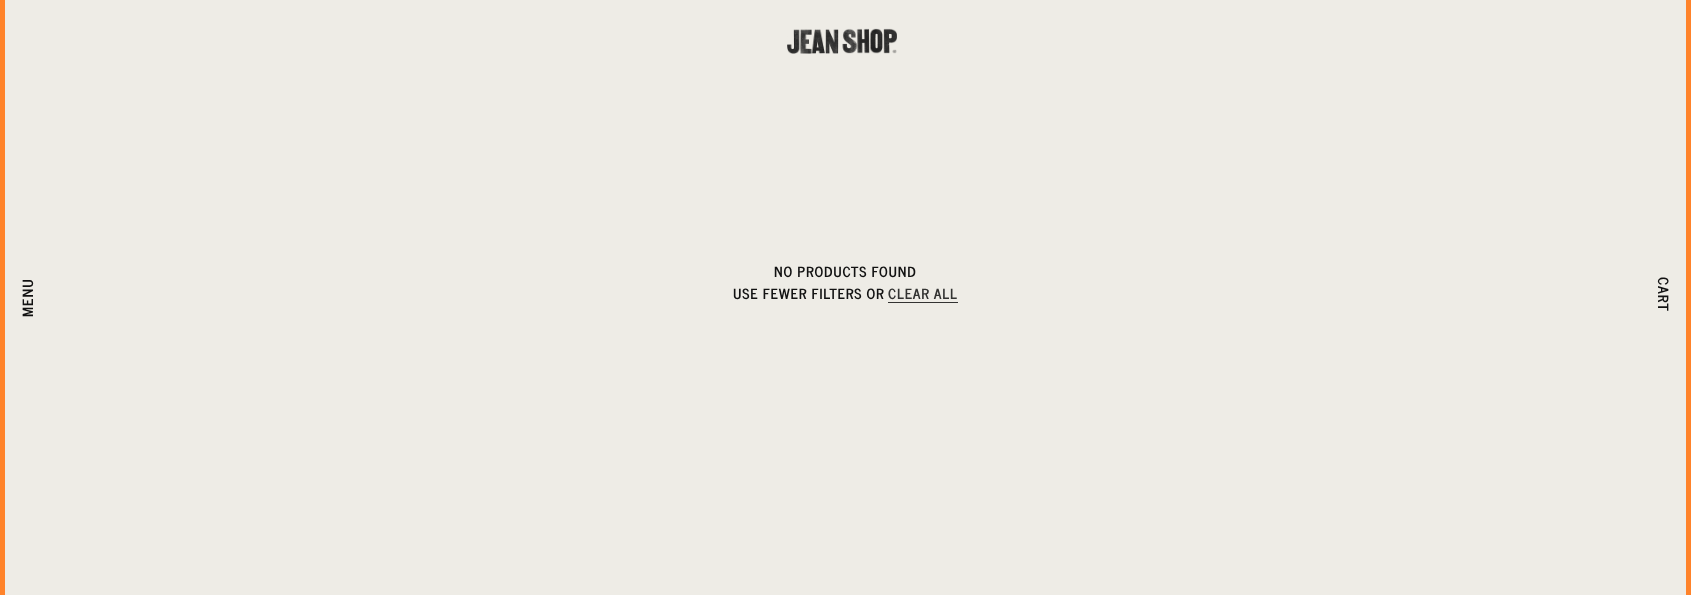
<svg xmlns="http://www.w3.org/2000/svg" width="1691" height="595" viewBox="0 0 1691 595">
  <rect width="100%" height="100%" fill="rgb(238,236,230)"/>
  <g font-family="News Cycle" font-size="14" font-weight="bold" letter-spacing="0.8" fill="rgb(18,18,18)">
    <text x="774" y="277">NO PRODUCTS FOUND</text>
    <text x="733" y="299">USE FEWER FILTERS OR</text>
  </g>
  <text x="888" y="299" font-family="News Cycle" font-size="14" font-weight="bold" letter-spacing="0.8" fill="rgb(51,51,50)">CLEAR ALL</text>
  <rect x="888" y="302" width="70" height="1" fill="rgb(51,51,50)"/>
  <rect x="1686" y="0" width="5" height="595" fill="rgb(255,131,42)"/>
  <rect x="0" y="0" width="5" height="595" fill="rgb(255,131,42)"/>
  <image x="787" y="28" width="110" height="26" href="pic1.png"/>
  <g font-family="News Cycle" font-size="14" font-weight="bold" letter-spacing="1" fill="rgb(18,18,18)">
    <text x="33" y="317" transform="rotate(-90 33 317)">MENU</text>
    <text x="1658" y="277" transform="rotate(90 1658 277)">CART</text>
  </g>
</svg>
